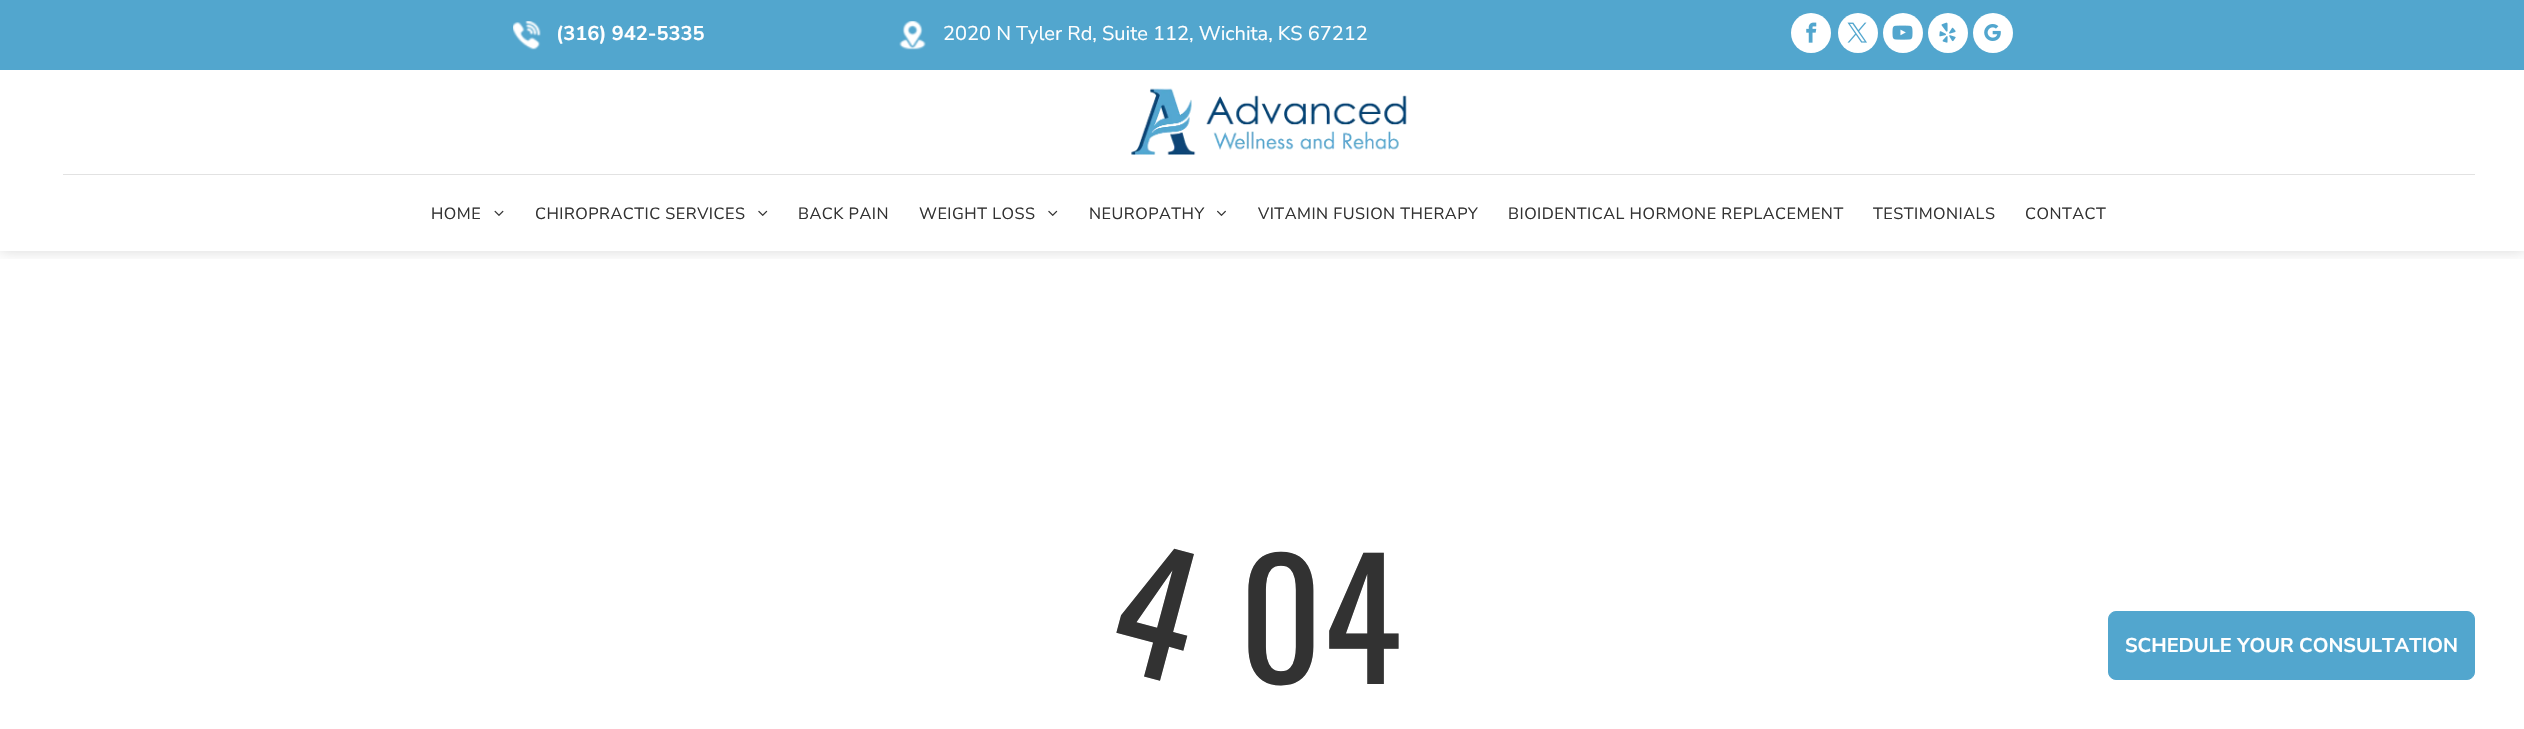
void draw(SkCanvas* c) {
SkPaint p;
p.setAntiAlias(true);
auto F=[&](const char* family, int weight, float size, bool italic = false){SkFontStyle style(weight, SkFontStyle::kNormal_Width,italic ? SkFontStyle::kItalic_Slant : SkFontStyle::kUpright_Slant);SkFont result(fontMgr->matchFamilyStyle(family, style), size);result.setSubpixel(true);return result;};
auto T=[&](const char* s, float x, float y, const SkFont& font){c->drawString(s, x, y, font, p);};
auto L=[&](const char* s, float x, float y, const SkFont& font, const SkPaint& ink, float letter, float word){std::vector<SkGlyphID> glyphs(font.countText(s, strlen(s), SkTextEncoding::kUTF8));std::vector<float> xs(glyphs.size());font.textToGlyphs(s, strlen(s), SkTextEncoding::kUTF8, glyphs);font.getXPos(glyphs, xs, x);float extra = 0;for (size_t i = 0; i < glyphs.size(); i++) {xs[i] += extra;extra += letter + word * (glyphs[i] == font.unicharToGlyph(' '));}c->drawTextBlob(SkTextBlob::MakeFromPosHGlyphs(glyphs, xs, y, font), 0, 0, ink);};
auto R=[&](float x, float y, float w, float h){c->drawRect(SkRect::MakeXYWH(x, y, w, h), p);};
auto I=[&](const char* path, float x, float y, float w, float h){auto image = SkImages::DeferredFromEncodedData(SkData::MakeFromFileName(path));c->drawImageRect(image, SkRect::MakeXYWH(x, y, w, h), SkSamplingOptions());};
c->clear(0xffffffff);
c->save();
c->clipRect(SkRect::MakeXYWH(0,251,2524,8));
p.setColor(0x26000000);
p.setMaskFilter(SkMaskFilter::MakeBlur(kNormal_SkBlurStyle, 7));
c->drawRect(SkRect::MakeXYWH(0,0,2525,251),p);
p.setMaskFilter(nullptr);
c->restore();
p.setColor(0xff52a6ce);
R(0,0,2524,70);
I("1.png",513,21,28,29);
auto f1 = F("Nunito Sans",700,20);
p.setColor(0xffffffff);
T("(316) 942-5335",556,40,f1);
I("2.png",899,21,27,29);
auto f2 = F("Nunito Sans",400,20);
T("2020 N Tyler Rd, Suite 112, Wichita, KS 67212",943,40,f2);
c->drawCircle(1811,33,20,p);
I("3.png",1806,22,11,21);
c->drawCircle(1858,33,20,p);
I("4.png",1847,22,20,21);
c->drawCircle(1903,33,20,p);
I("5.png",1892,25,21,15);
c->drawCircle(1948,33,20,p);
I("6.png",1939,22,17,21);
c->drawCircle(1993,33,20,p);
I("7.png",1984,24,17,17);
I("8.png",1131,88,276,67);
p.setColor(0xffe2e2e2);
R(63,174,2412,1);
auto f3 = F("Nunito Sans",400,16.25);
p.setColor(0xff323232);
L("HOME",431,219,f3,p,.5,0);
I("9.png",494,210,10,6);
L("CHIROPRACTIC SERVICES",535,219,f3,p,.5,0);
I("10.png",758,210,10,6);
L("BACK PAIN",798,219,f3,p,.5,0);
L("WEIGHT LOSS",919,219,f3,p,.5,0);
I("10.png",1048,210,10,6);
L("NEUROPATHY",1089,219,f3,p,.5,0);
I("11.png",1217,210,9,6);
L("VITAMIN FUSION THERAPY",1258,219,f3,p,.5,0);
L("BIOIDENTICAL HORMONE REPLACEMENT",1508,219,f3,p,.5,0);
L("TESTIMONIALS",1873,219,f3,p,.5,0);
L("CONTACT",2025,219,f3,p,.5,0);
auto f4 = F("Oswald",400,162);
c->save();
c->rotate(15,1101,665);
T("4",1101,665,f4);
c->restore();
T("04",1239,684,f4);
p.setColor(0xff52a6ce);
c->drawRoundRect(SkRect::MakeXYWH(2108.5,611.5,366,68),7.5,7.5,p);
p.setStroke(true);
p.setStrokeWidth(1);
c->drawRoundRect(SkRect::MakeXYWH(2108.5,611.5,366,68),7.5,7.5,p);
p.setStroke(false);
p.setColor(0xffffffff);
T("SCHEDULE YOUR CONSULTATION",2125,652,f1);
}
